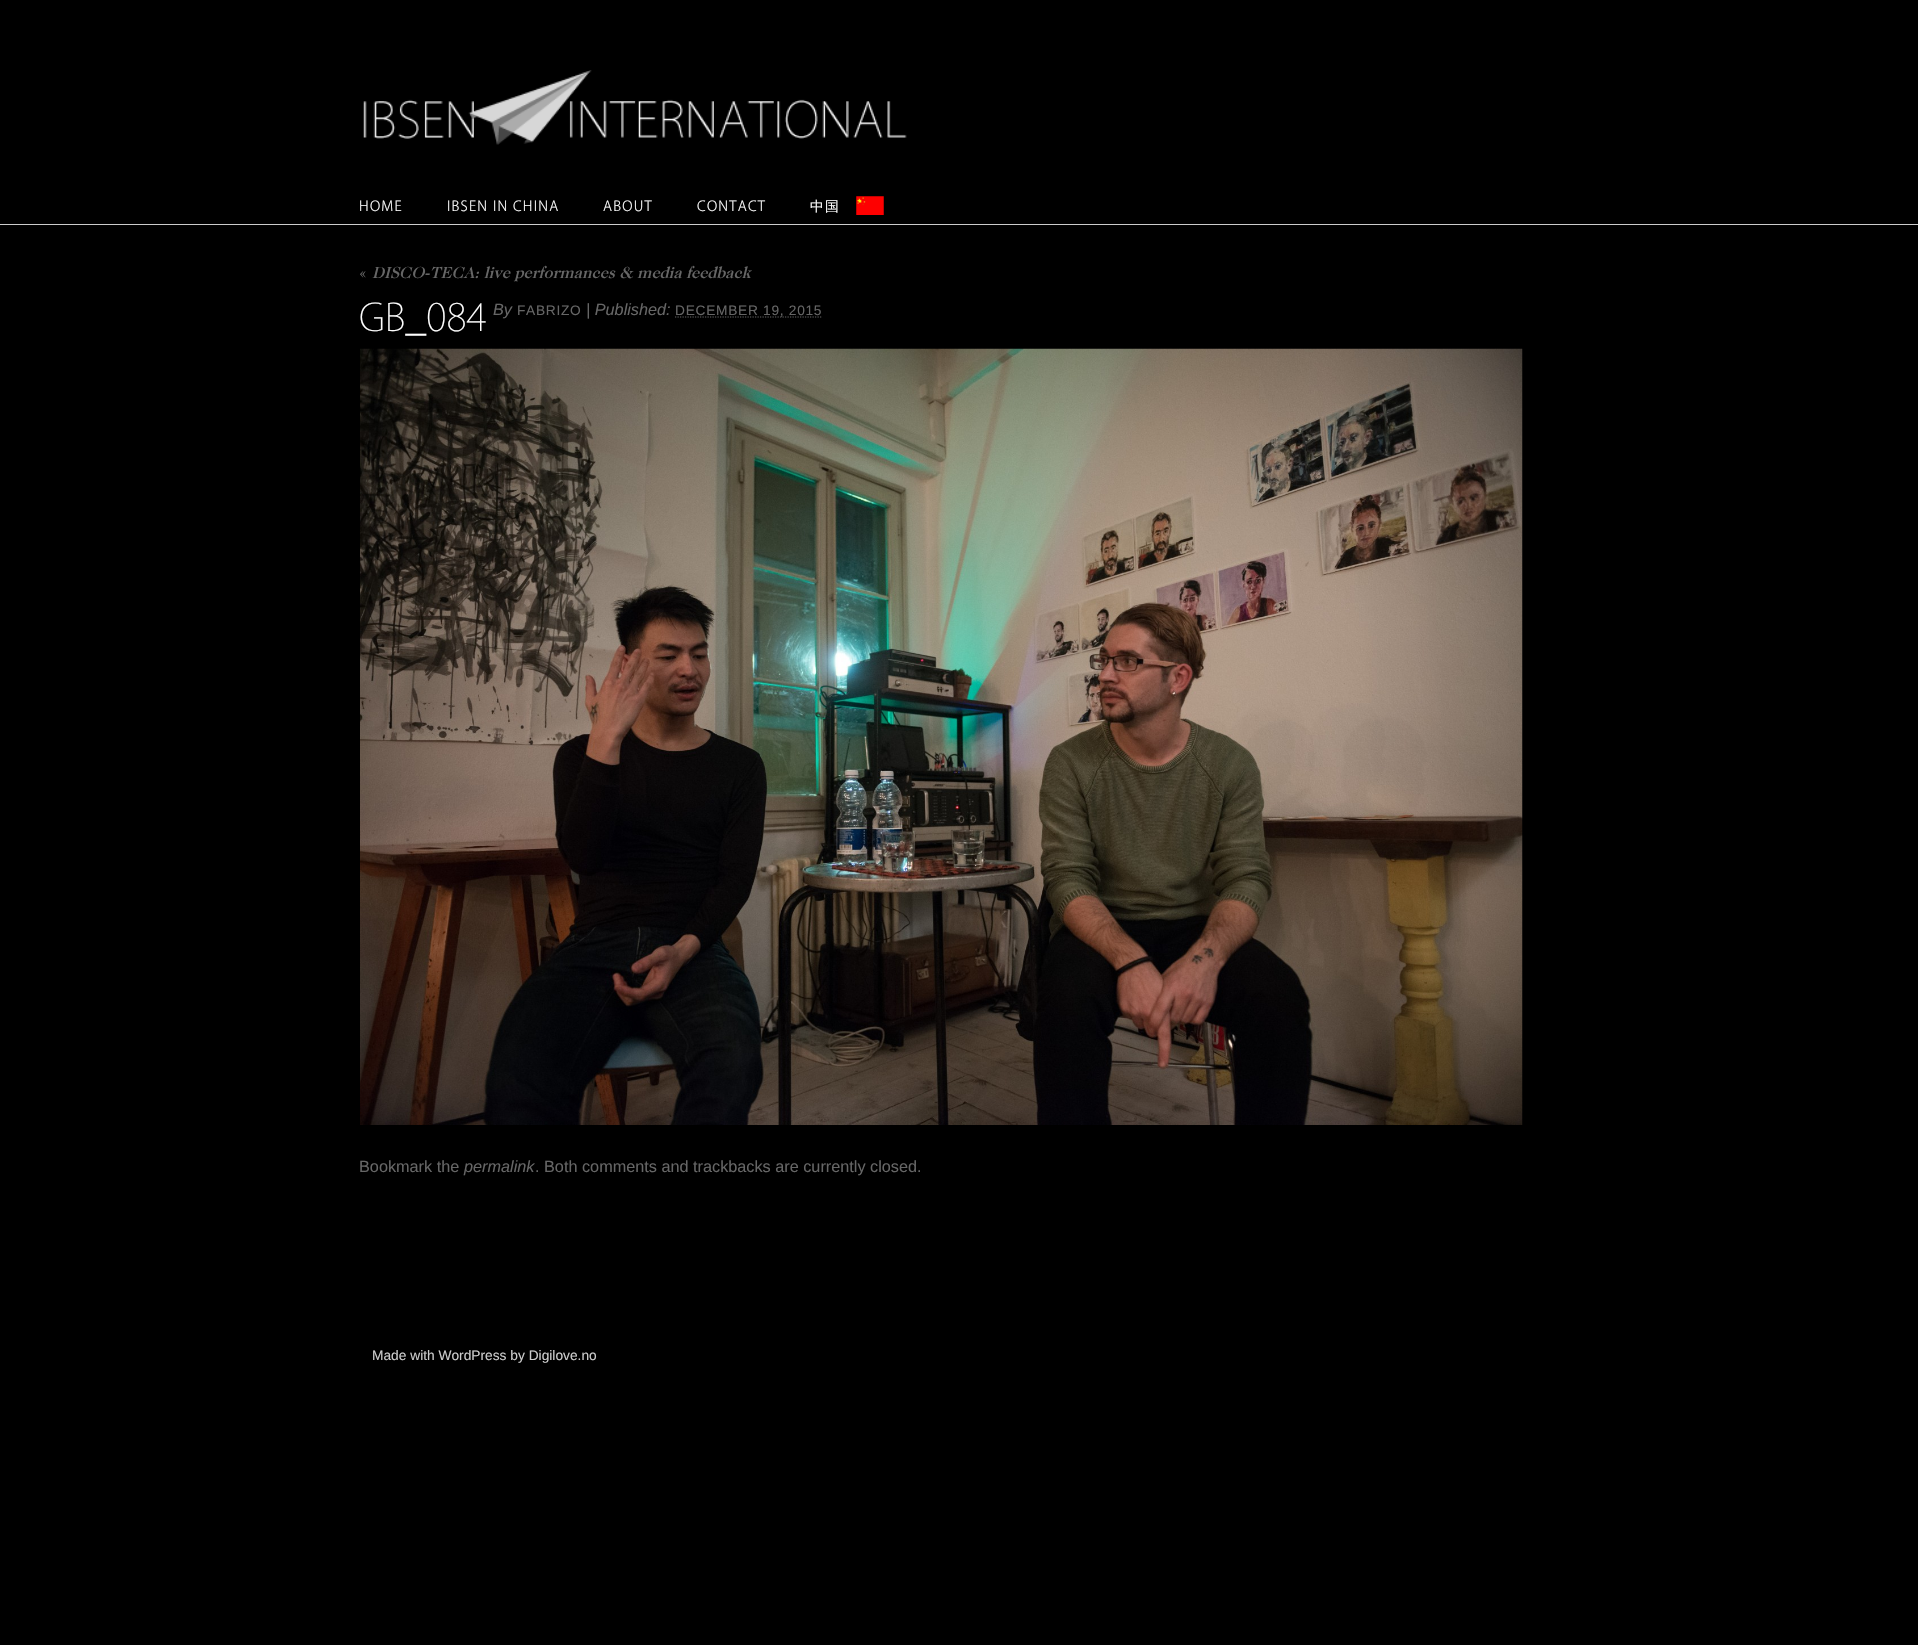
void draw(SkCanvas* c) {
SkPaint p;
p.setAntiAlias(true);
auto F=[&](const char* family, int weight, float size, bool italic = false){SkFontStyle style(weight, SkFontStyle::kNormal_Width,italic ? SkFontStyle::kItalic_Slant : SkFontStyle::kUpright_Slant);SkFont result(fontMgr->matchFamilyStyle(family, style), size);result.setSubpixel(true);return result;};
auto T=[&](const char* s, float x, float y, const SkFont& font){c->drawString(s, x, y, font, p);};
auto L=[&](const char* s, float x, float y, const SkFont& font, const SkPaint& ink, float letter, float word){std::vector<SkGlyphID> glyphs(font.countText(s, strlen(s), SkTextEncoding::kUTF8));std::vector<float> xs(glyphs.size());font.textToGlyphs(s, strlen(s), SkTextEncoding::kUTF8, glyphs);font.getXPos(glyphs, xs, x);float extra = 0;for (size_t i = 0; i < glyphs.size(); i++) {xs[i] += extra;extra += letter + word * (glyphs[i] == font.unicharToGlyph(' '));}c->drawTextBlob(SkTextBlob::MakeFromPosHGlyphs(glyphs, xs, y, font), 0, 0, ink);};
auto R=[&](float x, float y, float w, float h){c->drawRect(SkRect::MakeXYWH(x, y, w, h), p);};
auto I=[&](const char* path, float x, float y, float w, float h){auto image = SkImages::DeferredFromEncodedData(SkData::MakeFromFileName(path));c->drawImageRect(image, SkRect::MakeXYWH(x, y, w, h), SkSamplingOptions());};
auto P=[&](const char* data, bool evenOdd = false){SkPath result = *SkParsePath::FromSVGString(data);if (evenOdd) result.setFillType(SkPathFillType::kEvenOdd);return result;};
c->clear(0xff000000);
I("1.png",363,70,544,75);
p.setColor(0xffcccccc);
R(0,224,1918,1);
auto f1 = F("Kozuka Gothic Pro",300,13.75);
p.setColor(0xffffffff);
L("HOME",359,211,f1,p,1.25,0);
L("IBSEN IN CHINA",447,211,f1,p,1.25,0);
L("ABOUT",603,211,f1,p,1.25,0);
L("CONTACT",697,211,f1,p,1.25,0);
I("2.png",856,196,28,19);
auto f2 = F("WenQuanYi Zen Hei",500,13.75);
L("中国",810,211,f2,p,1.25,0);
auto f3 = F("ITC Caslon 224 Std",500,16.25);
p.setColor(0xff666666);
T("«",359,278,f3);
auto f4 = F("ITC Caslon 224 Std",500,16.25,true);
T("DISCO-TECA: live performances & media feedback",372,278,f4);
auto f5 = F("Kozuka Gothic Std",200,37.5);
p.setColor(0xffffffff);
T("GB_084",359,331,f5);
auto f6 = F("Liberation Sans",400,16.25,true);
p.setColor(0xff666666);
T("By",493,315,f6);
auto f7 = F("Liberation Sans",400,13.75);
L("FABRIZO",517,315,f7,p,.7,0);
T("| Published:",586,315,f6);
p.setStroke(true);
p.setStrokeWidth(1.2);
p.setPathEffect(SkDashPathEffect::Make({{1.25f,1.25f}}, 0));
c->drawPath(P("M675 317h146.5"),p);
p.setPathEffect(nullptr);
p.setStroke(false);
L("DECEMBER 19, 2015",675,315,f7,p,.7,0);
I("3.png",360,348,1163,777);
auto f8 = F("Liberation Sans",400,16.25);
T("Bookmark the",359,1172,f8);
T("permalink",464,1172,f6);
T(". Both comments and trackbacks are currently closed.",535,1172,f8);
p.setColor(0xffcccccc);
T("Made with WordPress by Digilove.no",372,1360,f7);
}
